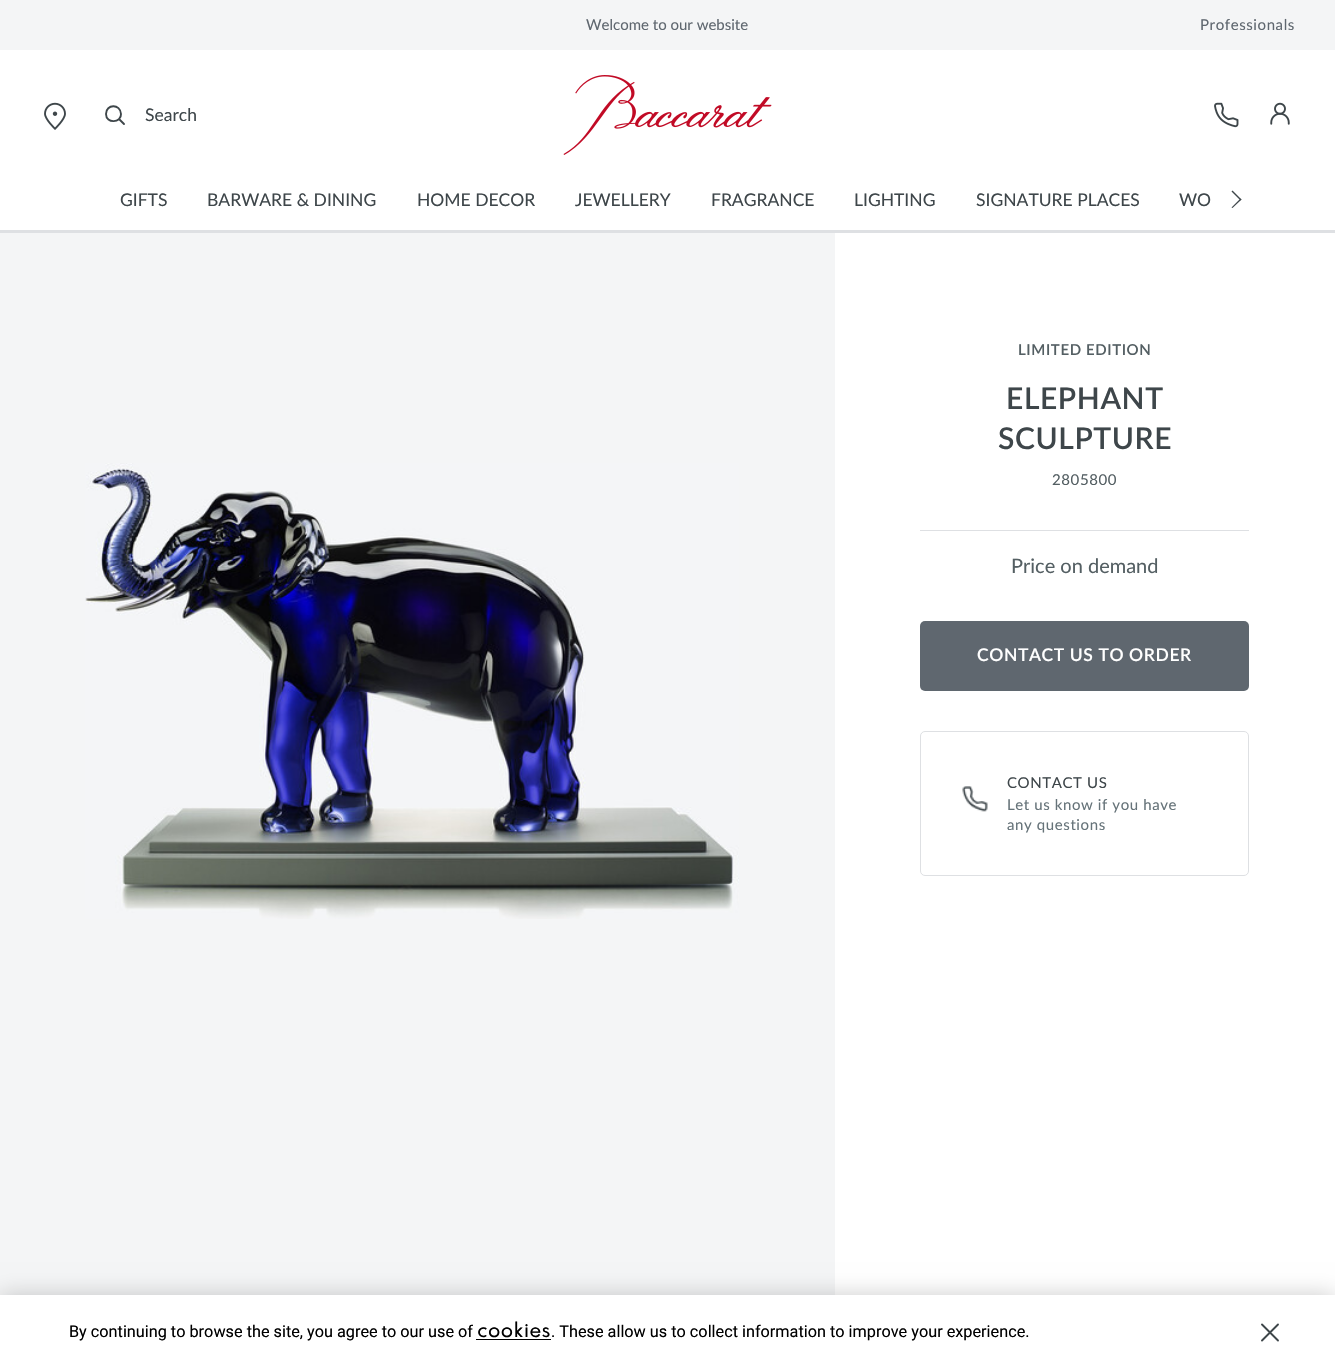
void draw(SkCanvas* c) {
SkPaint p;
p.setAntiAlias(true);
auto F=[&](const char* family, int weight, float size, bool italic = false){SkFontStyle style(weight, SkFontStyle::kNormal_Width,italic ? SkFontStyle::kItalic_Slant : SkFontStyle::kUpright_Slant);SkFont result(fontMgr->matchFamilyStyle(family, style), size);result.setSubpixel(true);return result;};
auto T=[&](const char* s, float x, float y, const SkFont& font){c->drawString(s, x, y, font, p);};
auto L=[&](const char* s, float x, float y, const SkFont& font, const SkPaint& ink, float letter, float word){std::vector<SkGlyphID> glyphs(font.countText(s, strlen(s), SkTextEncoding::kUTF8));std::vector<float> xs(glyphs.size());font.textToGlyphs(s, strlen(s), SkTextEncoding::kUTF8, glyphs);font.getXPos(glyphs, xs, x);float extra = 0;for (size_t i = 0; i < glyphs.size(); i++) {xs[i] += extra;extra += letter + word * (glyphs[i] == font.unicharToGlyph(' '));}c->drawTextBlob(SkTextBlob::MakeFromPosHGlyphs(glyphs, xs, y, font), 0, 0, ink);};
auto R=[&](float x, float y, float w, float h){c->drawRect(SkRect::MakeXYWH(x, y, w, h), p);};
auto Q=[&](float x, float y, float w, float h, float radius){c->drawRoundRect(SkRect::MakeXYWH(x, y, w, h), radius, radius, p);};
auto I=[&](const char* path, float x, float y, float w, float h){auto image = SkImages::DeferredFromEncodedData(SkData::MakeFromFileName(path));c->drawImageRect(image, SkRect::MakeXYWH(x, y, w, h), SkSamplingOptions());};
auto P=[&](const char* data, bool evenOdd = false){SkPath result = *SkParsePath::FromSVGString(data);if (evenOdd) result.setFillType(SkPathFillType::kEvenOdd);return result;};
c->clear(0xffffffff);
p.setColor(0xfff4f5f6);
R(0,0,1335,50);
auto f1 = F("Lato",400,15);
p.setColor(0xff5f676f);
T("Welcome to our website",586,30,f1);
L("Professionals",1200,30,f1,p,.6,0);
p.setColor(0xffdee0e3);
R(0,230,1335,3);
I("1.png",44,102,22,28);
p.setStroke(true);
p.setStrokeWidth(1.9);
p.setStrokeCap(SkPaint::kRound_Cap);
p.setStrokeJoin(SkPaint::kRound_Join);
p.setColor(0xff3e464a);
c->drawPath(P("M119.5 119.5l4.5 4.5m-18-10c0 10 15.5 9 15 0c-.5-10.5-15-10-15 0z"),p);
auto f2 = F("Lato",400,17.5);
p.setStroke(false);
T("Search",145,121,f2);
I("2.png",563,75,209,80);
I("3.png",1214,102,25,26);
I("4.png",1270,102,20,23);
T("GIFTS",120,206,f2);
T("BARWARE & DINING",207,206,f2);
T("HOME DECOR",417,206,f2);
T("JEWELLERY",575,206,f2);
T("FRAGRANCE",711,206,f2);
T("LIGHTING",854,206,f2);
T("SIGNATURE PLACES",976,206,f2);
T("WO",1179,206,f2);
c->drawPath(P("M1231.5 191.5l1-1l9 9l-1 1z"),p);
c->drawPath(P("M1231.5 207.5l9-9l1 1l-9 8.5z"),p);
p.setColor(0xfff4f5f6);
R(0,233,835,1062);
I("5.png",85,463,654,456);
auto f3 = F("Lato",600,15);
p.setColor(0xff545f63);
L("LIMITED EDITION",1018,355,f3,p,.6,0);
auto f4 = F("Lato",600,30);
p.setColor(0xff3e464a);
L("ELEPHANT",1006,409,f4,p,.6,0);
L("SCULPTURE",998,449,f4,p,.6,0);
p.setColor(0xff545f63);
L("2805800",1052,485,f1,p,.6,0);
p.setColor(0xffdee0e3);
R(920,530,329,1);
auto f5 = F("Lato",400,20);
p.setColor(0xff545f63);
T("Price on demand",1011,573,f5);
p.setColor(0xff5f676f);
Q(920,621,329,70,5);
auto f6 = F("Lato",600,17.5);
p.setColor(0xffffffff);
L("CONTACT US TO ORDER",977,661,f6,p,.6,0);
p.setStroke(true);
p.setStrokeWidth(1);
p.setStrokeCap(SkPaint::kButt_Cap);
p.setStrokeJoin(SkPaint::kMiter_Join);
p.setColor(0xffdee0e3);
c->drawRoundRect(SkRect::MakeXYWH(920.5,731.5,328,144),4.5,4.5,p);
I("6.png",962,786,26,26);
p.setStroke(false);
p.setColor(0xff3e464a);
L("CONTACT US",1007,788,f1,p,.6,0);
p.setColor(0xff667379);
L("Let us know if you have",1007,810,f1,p,.6,0);
L("any questions",1007,830,f1,p,.6,0);
p.setColor(0x33000000);
p.setMaskFilter(SkMaskFilter::MakeBlur(kNormal_SkBlurStyle, 11));
c->drawRect(SkRect::MakeXYWH(0,1295,1335,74),p);
p.setMaskFilter(nullptr);
p.setColor(0xffffffff);
R(0,1295,1335,73);
auto f7 = F("Roboto",400,16.25);
p.setColor(0xff000000);
T("By continuing to browse the site, you agree to our use of",69,1337,f7);
auto f8 = F("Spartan",700,17.5);
L("cookies",477,1337,f8,p,.6,0);
R(476,1339,75,1);
T(". These allow us to collect information to improve your experience.",551,1337,f7);
p.setStroke(true);
p.setStrokeWidth(1.9);
p.setStrokeCap(SkPaint::kRound_Cap);
p.setStrokeJoin(SkPaint::kRound_Join);
p.setColor(0xff3e464a);
c->drawPath(P("M1262 1340.5l16-16m-16 0l16 16"),p);
}
